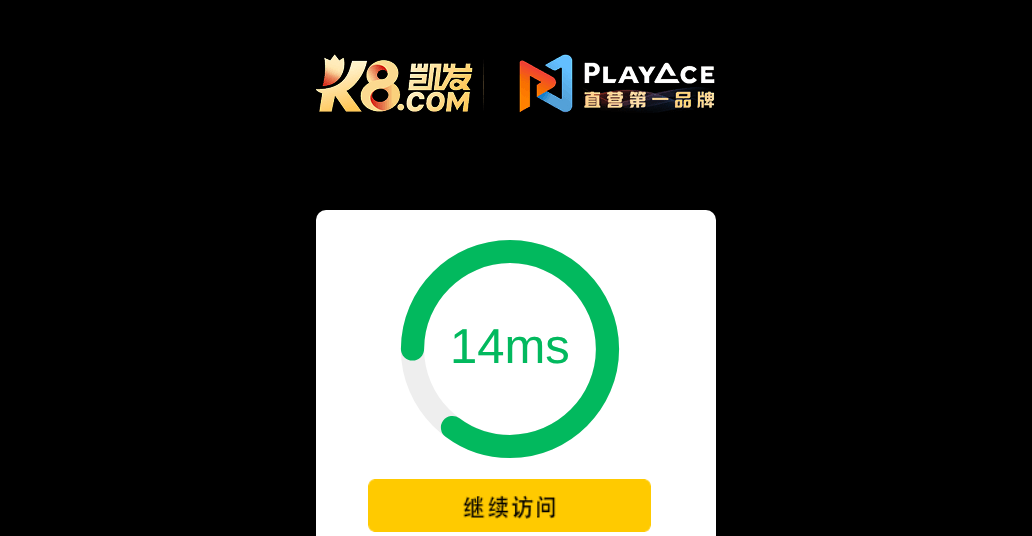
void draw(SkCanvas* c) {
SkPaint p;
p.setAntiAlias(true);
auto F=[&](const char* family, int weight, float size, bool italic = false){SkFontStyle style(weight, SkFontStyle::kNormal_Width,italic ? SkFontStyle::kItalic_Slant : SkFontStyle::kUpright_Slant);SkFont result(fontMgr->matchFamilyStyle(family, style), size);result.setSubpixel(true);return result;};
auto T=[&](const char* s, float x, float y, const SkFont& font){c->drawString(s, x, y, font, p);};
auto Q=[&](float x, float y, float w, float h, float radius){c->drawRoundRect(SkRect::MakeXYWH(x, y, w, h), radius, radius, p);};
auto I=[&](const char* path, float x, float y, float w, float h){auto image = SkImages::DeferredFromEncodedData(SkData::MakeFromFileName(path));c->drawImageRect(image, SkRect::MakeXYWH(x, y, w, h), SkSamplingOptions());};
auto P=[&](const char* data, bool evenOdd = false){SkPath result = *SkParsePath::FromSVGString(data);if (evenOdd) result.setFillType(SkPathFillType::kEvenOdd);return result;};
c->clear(0xff000000);
I("1.png",316,54,399,59);
p.setColor(0xffffffff);
Q(316,210,400,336,10);
p.setStroke(true);
p.setStrokeWidth(23.2);
p.setColor(0xffeeeeee);
c->drawPath(P("M510 251.5c53.5 0 97.5 44 97.5 97.5c0 53.5-44 97.5-97.5 97.5c-53.5 0-97.5-44-97.5-97.5c0-53.5 44-97.5 97.5-97.5"),p);
p.setStrokeCap(SkPaint::kRound_Cap);
p.setColor(0xff02b95e);
c->drawPath(P("M412.5 349c0-53.5 44-97.5 97.5-97.5c53.5 0 97.5 44 97.5 97.5c0 53.5-44 97.5-97.5 97.5c-21.5 0-41.5-7-57.5-19"),p);
auto f1 = F("Liberation Sans",400,49);
p.setStroke(false);
T("14ms",450,363,f1);
I("2.png",368,479,283,53);
}
